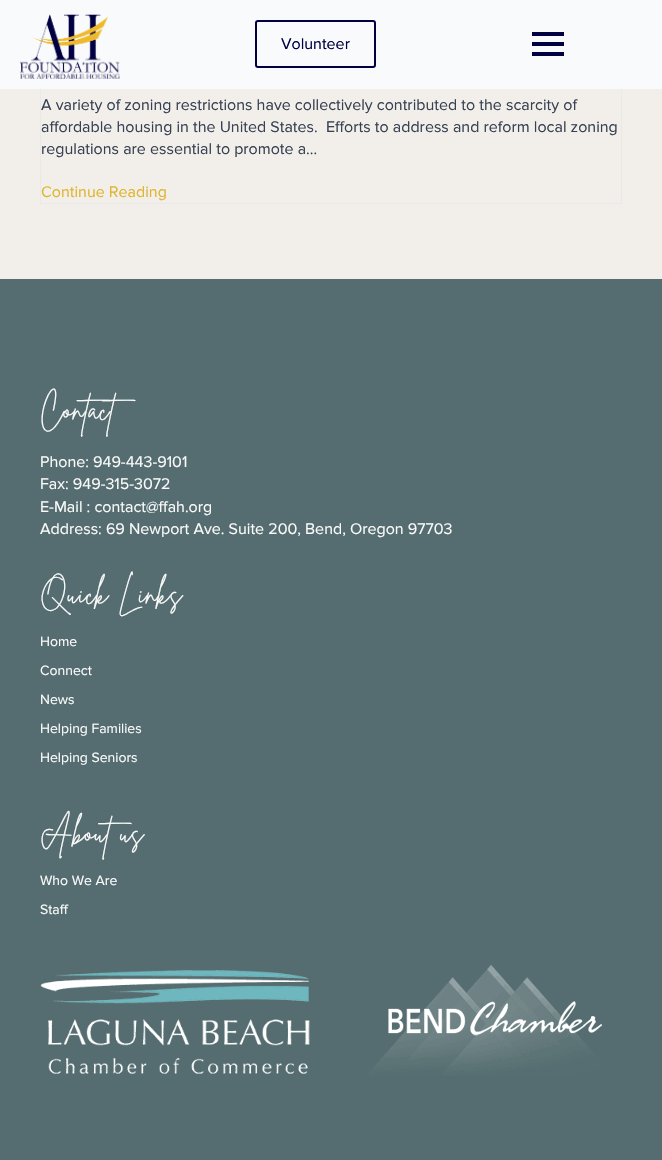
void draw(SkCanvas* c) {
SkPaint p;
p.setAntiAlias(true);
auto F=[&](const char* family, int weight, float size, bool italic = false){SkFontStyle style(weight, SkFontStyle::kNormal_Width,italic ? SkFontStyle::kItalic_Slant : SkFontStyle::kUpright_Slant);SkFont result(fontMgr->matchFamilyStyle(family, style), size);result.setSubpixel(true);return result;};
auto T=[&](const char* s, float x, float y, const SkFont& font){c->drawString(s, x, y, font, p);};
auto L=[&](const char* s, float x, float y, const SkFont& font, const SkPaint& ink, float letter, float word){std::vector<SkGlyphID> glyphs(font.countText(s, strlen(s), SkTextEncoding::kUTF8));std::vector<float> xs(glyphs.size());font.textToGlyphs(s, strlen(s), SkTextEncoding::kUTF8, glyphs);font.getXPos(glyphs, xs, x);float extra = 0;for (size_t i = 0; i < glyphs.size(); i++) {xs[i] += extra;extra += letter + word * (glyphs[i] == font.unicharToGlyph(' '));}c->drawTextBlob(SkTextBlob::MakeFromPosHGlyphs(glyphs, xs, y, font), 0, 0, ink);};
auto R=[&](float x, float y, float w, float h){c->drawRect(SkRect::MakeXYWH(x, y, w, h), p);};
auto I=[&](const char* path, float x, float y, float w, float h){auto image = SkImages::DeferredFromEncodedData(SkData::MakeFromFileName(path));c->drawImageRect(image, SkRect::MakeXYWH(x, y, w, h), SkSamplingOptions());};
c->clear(0xfff2efeb);
p.setStroke(true);
p.setStrokeWidth(1);
p.setColor(0xffe9e9e9);
c->drawRect(SkRect::MakeXYWH(40.5,-.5,581,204),p);
p.setStroke(false);
p.setColor(0xfff9fafb);
R(0,0,662,89);
I("1.png",20,14,100,65);
p.setStroke(true);
p.setStrokeWidth(2);
p.setColor(0xff000042);
c->drawRoundRect(SkRect::MakeXYWH(256,21,119,46),2,2,p);
auto f1 = F("Proxima Nova",400,16);
p.setStroke(false);
T("Volunteer",281,49,f1);
R(532,42,32,4);
R(532,32,32,4);
R(532,52,32,4);
p.setColor(0xff374151);
T("A variety of zoning restrictions have collectively contributed to the scarcity of",41,110,f1);
T("affordable housing in the United States.  Efforts to address and reform local zoning",41,132,f1);
T("regulations are essential to promote a...",41,154,f1);
p.setColor(0xffdeb52f);
T("Continue Reading",41,197,f1);
p.setColor(0xff556d70);
R(0,279,662,881);
auto f2 = F("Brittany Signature",400,30);
p.setColor(0xfffbfbfb);
L("Contact",40,418,f2,p,.4,0);
T("Phone: 949-443-9101",40,467,f1);
T("Fax: 949-315-3072",40,489,f1);
T("E-Mail : contact@ffah.org",40,512,f1);
T("Address: 69 Newport Ave. Suite 200, Bend, Oregon 97703",40,534,f1);
L("Quick Links",40,602,f2,p,.4,0);
auto f3 = F("Proxima Nova",400,14);
T("Home",40,646,f3);
T("Connect",40,675,f3);
T("News",40,704,f3);
T("Helping Families",40,733,f3);
T("Helping Seniors",40,762,f3);
L("About us",40,841,f2,p,.4,0);
T("Who We Are",40,885,f3);
T("Staff",40,914,f3);
I("2.png",40,970,270,104);
I("3.png",369,964,233,112);
}
